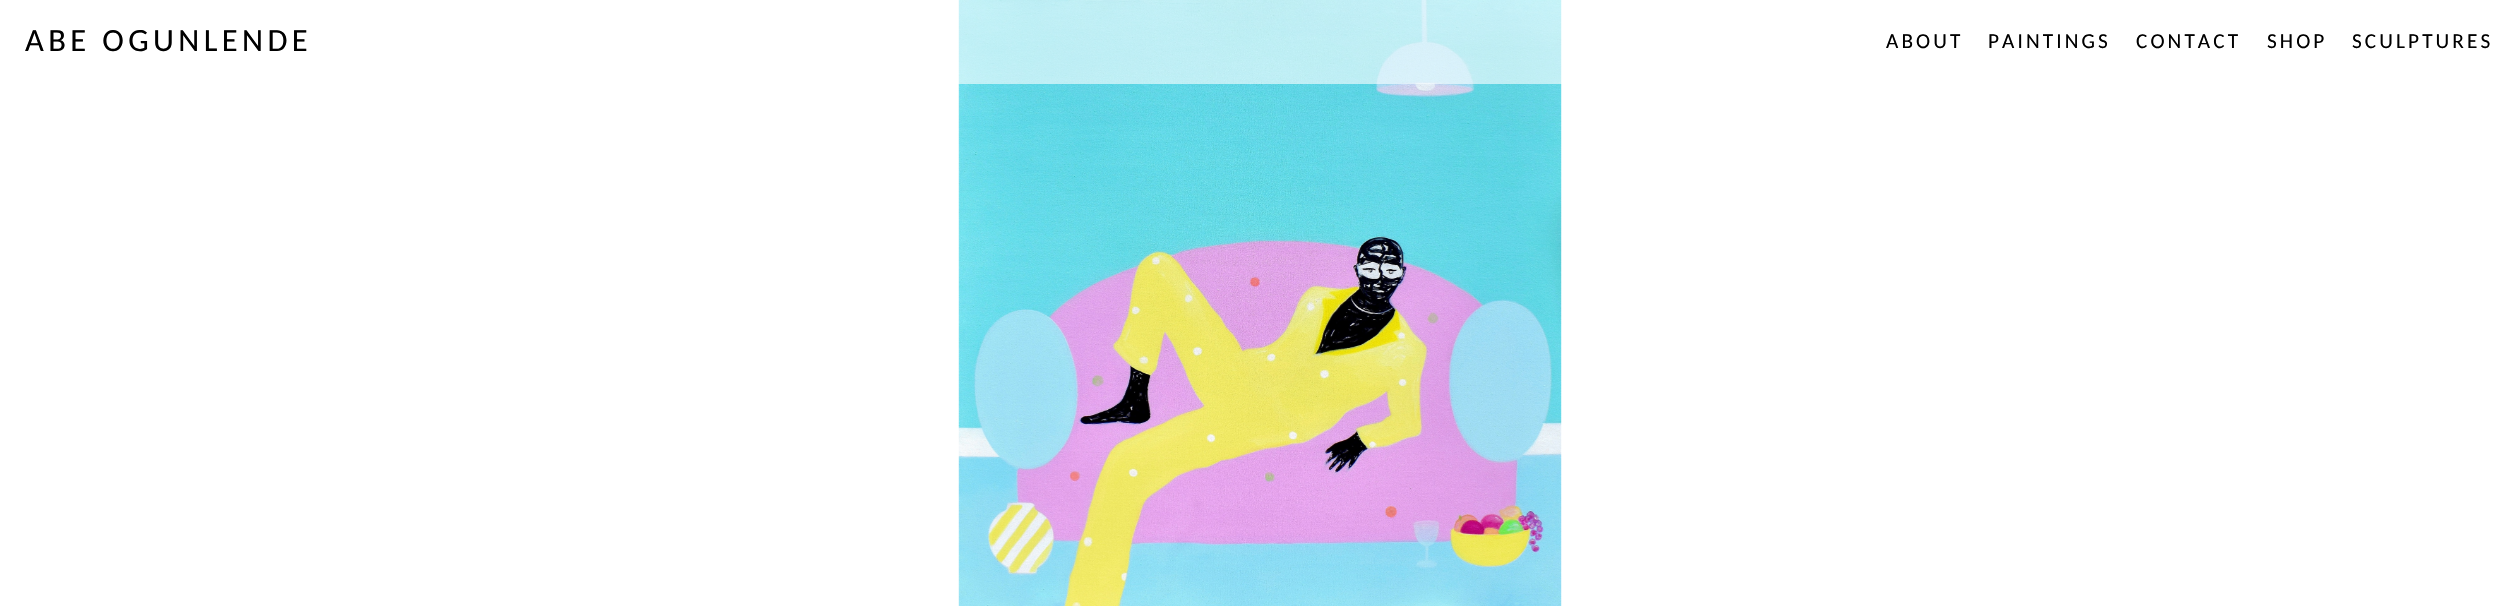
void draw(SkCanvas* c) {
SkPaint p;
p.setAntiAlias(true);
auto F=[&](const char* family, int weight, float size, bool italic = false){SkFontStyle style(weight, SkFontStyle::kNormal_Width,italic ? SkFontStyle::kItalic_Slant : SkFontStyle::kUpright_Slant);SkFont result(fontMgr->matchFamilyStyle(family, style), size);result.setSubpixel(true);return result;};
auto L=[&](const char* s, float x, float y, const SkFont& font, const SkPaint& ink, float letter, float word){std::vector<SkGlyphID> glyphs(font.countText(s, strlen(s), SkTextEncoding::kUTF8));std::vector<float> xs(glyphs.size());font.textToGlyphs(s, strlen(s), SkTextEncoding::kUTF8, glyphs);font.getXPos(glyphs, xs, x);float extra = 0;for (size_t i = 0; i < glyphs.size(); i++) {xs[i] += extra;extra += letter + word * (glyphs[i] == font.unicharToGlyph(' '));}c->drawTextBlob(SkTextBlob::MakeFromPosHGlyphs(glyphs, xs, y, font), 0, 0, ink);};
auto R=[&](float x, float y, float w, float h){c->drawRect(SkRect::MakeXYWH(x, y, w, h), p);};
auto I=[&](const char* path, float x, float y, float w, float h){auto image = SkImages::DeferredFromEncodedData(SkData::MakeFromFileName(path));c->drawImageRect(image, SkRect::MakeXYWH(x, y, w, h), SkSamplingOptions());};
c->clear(0xffffffff);
I("1.png",958,0,604,606);
p.setColor(0x99ffffff);
R(958,0,604,84);
auto f1 = F("Carlito",400,32.5);
p.setColor(0xff000000);
L("ABE OGUNLENDE",25,51,f1,p,4.4,0);
auto f2 = F("Carlito",400,21.25);
L("ABOUT",1886,48,f2,p,3.1,0);
L("PAINTINGS",1988,48,f2,p,3.1,0);
L("CONTACT",2136,48,f2,p,3.1,0);
L("SHOP",2267,48,f2,p,3.1,0);
L("SCULPTURES",2352,48,f2,p,3.1,0);
}
